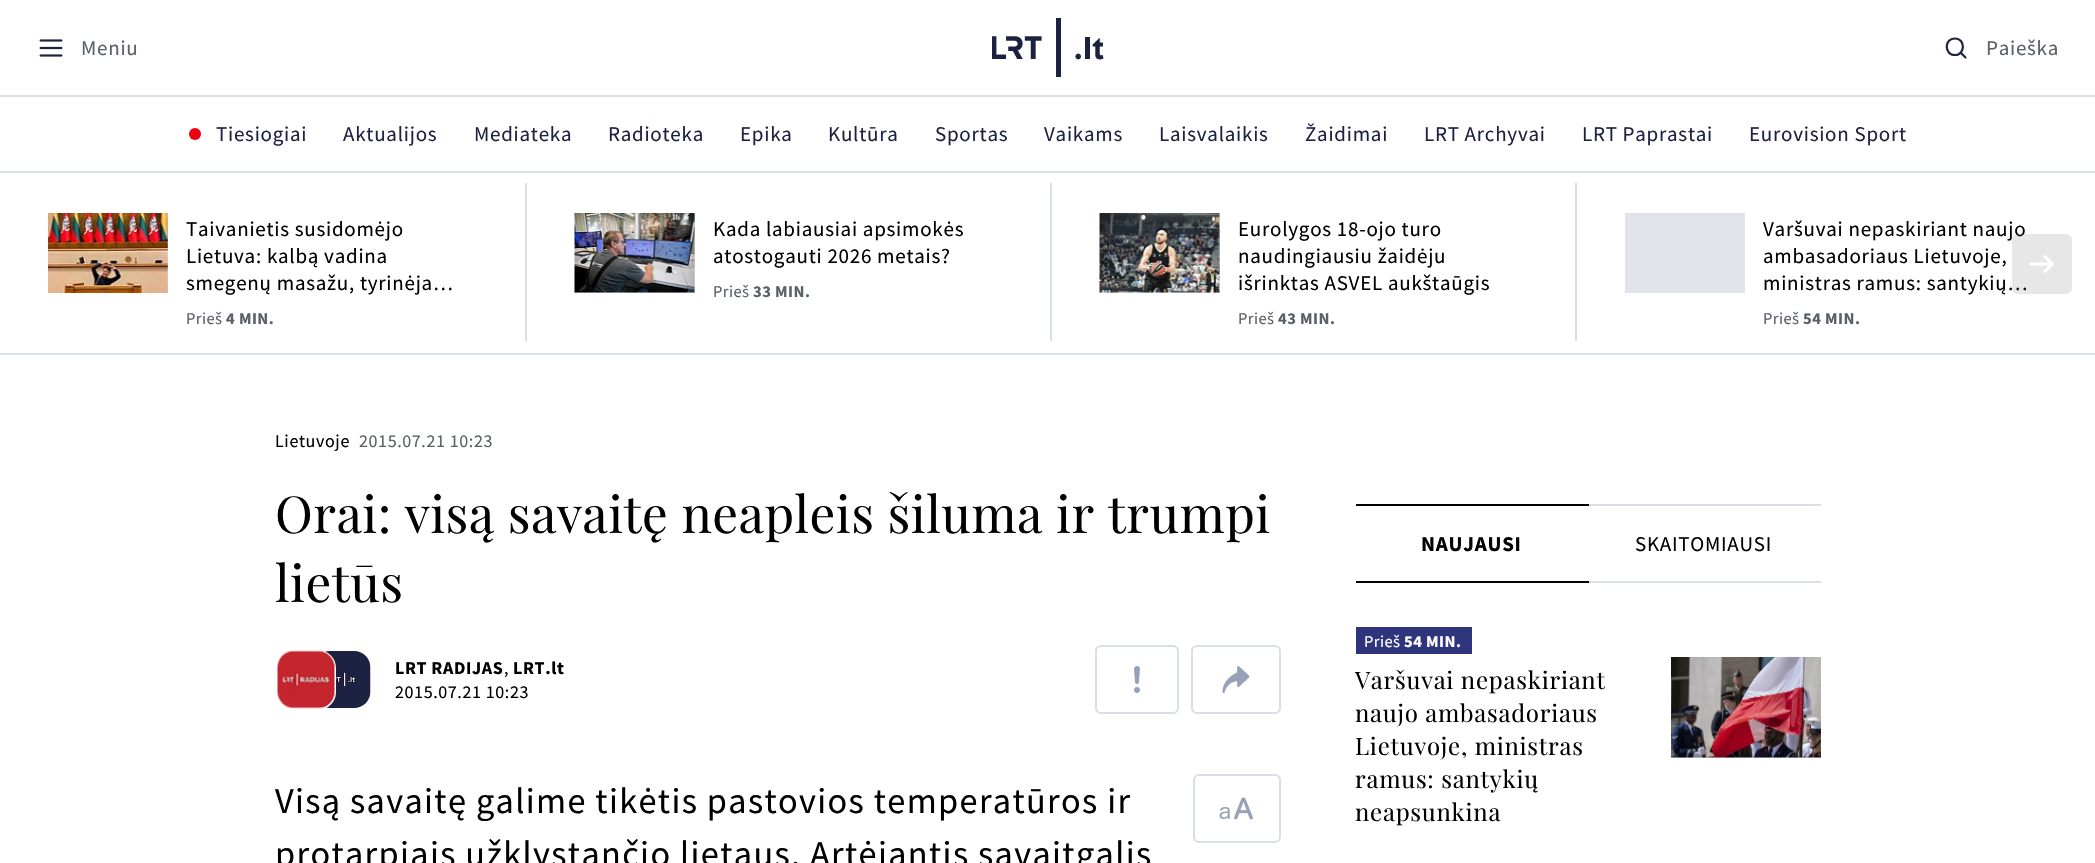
void draw(SkCanvas* c) {
SkPaint p;
p.setAntiAlias(true);
auto F=[&](const char* family, int weight, float size, bool italic = false){SkFontStyle style(weight, SkFontStyle::kNormal_Width,italic ? SkFontStyle::kItalic_Slant : SkFontStyle::kUpright_Slant);SkFont result(fontMgr->matchFamilyStyle(family, style), size);result.setSubpixel(true);return result;};
auto L=[&](const char* s, float x, float y, const SkFont& font, const SkPaint& ink, float letter, float word){std::vector<SkGlyphID> glyphs(font.countText(s, strlen(s), SkTextEncoding::kUTF8));std::vector<float> xs(glyphs.size());font.textToGlyphs(s, strlen(s), SkTextEncoding::kUTF8, glyphs);font.getXPos(glyphs, xs, x);float extra = 0;for (size_t i = 0; i < glyphs.size(); i++) {xs[i] += extra;extra += letter + word * (glyphs[i] == font.unicharToGlyph(' '));}c->drawTextBlob(SkTextBlob::MakeFromPosHGlyphs(glyphs, xs, y, font), 0, 0, ink);};
auto R=[&](float x, float y, float w, float h){c->drawRect(SkRect::MakeXYWH(x, y, w, h), p);};
auto Q=[&](float x, float y, float w, float h, float radius){c->drawRoundRect(SkRect::MakeXYWH(x, y, w, h), radius, radius, p);};
auto I=[&](const char* path, float x, float y, float w, float h){auto image = SkImages::DeferredFromEncodedData(SkData::MakeFromFileName(path));c->drawImageRect(image, SkRect::MakeXYWH(x, y, w, h), SkSamplingOptions());};
auto P=[&](const char* data, bool evenOdd = false){SkPath result = *SkParsePath::FromSVGString(data);if (evenOdd) result.setFillType(SkPathFillType::kEvenOdd);return result;};
c->clear(0xffffffff);
p.setColor(0xffdadee5);
R(0,95,2095,2);
I("1.png",39,39,24,18);
auto f1 = F("Source Sans Pro",400,21);
p.setColor(0xff5b5f66);
L("Meniu",81,55,f1,p,.75,0);
I("2.png",992,18,112,59);
p.setStroke(true);
p.setStrokeWidth(2.2);
p.setStrokeCap(SkPaint::kRound_Cap);
p.setStrokeJoin(SkPaint::kRound_Join);
p.setColor(0xff1d2142);
c->drawPath(P("M1955 55c10.5 0 10.5-16.5 0-16.5c-11 0-11 16.5 0 16.5zm5.5-2.5l5 5"),p);
p.setStroke(false);
p.setColor(0xff5b5f66);
L("Paieška",1986,55,f1,p,.75,0);
p.setColor(0xffdadee5);
R(0,171,2095,2);
p.setColor(0xffee000e);
c->drawCircle(195,134,6,p);
p.setColor(0xff1d2142);
L("Tiesiogiai",216,141,f1,p,.75,0);
L("Aktualijos",343,141,f1,p,.75,0);
L("Mediateka",474,141,f1,p,.75,0);
L("Radioteka",608,141,f1,p,.75,0);
L("Epika",740,141,f1,p,.75,0);
L("Kultūra",828,141,f1,p,.75,0);
L("Sportas",935,141,f1,p,.75,0);
L("Vaikams",1044,141,f1,p,.75,0);
L("Laisvalaikis",1159,141,f1,p,.75,0);
L("Žaidimai",1305,141,f1,p,.75,0);
L("LRT Archyvai",1424,141,f1,p,.75,0);
L("LRT Paprastai",1582,141,f1,p,.75,0);
L("Eurovision Sport",1749,141,f1,p,.75,0);
p.setColor(0xffdadee5);
R(0,353,2095,2);
I("3.png",48,213,120,80);
p.setColor(0xff000000);
L("Taivanietis susidomėjo",186,236,f1,p,.75,0);
L("Lietuva: kalbą vadina",186,263,f1,p,.75,0);
L("smegenų masažu, tyrinėja…",186,290,f1,p,.75,0);
auto f2 = F("Source Sans Pro",400,16.5);
p.setColor(0xff5b5f66);
L("Prieš",186,324,f2,p,.45,0);
auto f3 = F("Source Sans Pro",700,16.5);
L("4 MIN.",226,324,f3,p,.45,0);
p.setColor(0xffdadee5);
R(525,183,2,158);
p.setColor(0xffe0e3e9);
R(575,213,120,80);
I("4.png",574,213,121,80);
p.setColor(0xff000000);
L("Kada labiausiai apsimokės",713,236,f1,p,.75,0);
L("atostogauti 2026 metais?",713,263,f1,p,.75,0);
p.setColor(0xff5b5f66);
L("Prieš",713,297,f2,p,.45,0);
L("33 MIN.",753,297,f3,p,.45,0);
p.setColor(0xffdadee5);
R(1050,183,2,158);
p.setColor(0xffe0e3e9);
R(1100,213,120,80);
I("5.png",1099,213,121,80);
p.setColor(0xff000000);
L("Eurolygos 18-ojo turo",1238,236,f1,p,.75,0);
L("naudingiausiu žaidėju",1238,263,f1,p,.75,0);
L("išrinktas ASVEL aukštaūgis",1238,290,f1,p,.75,0);
p.setColor(0xff5b5f66);
L("Prieš",1238,324,f2,p,.45,0);
L("43 MIN.",1278,324,f3,p,.45,0);
p.setColor(0xffdadee5);
R(1575,183,2,158);
p.setColor(0xffe0e3e9);
R(1625,213,120,80);
p.setColor(0xff000000);
L("Varšuvai nepaskiriant naujo",1763,236,f1,p,.75,0);
L("ambasadoriaus Lietuvoje,",1763,263,f1,p,.75,0);
L("ministras ramus: santykių…",1763,290,f1,p,.75,0);
p.setColor(0xff5b5f66);
L("Prieš",1763,324,f2,p,.45,0);
L("54 MIN.",1803,324,f3,p,.45,0);
p.setColor(0x265b5f66);
Q(2012,234,60,60,6);
I("6.png",2029,255,25,18);
auto f4 = F("Source Sans Pro",400,18);
p.setColor(0xff000000);
L("Lietuvoje",275,447,f4,p,.6,0);
p.setColor(0xff5b5f66);
L("2015.07.21 10:23",359,447,f4,p,.6,0);
auto f5 = F("Playfair Display",400,51);
p.setColor(0xff000000);
L("Orai: visą savaitę neapleis šiluma ir trumpi",275,533,f5,p,.45,0);
L("lietūs",275,602,f5,p,.45,0);
I("8.png",322,651,49,57);
p.setStroke(true);
p.setStrokeWidth(2);
p.setStrokeCap(SkPaint::kButt_Cap);
p.setStrokeJoin(SkPaint::kMiter_Join);
p.setColor(0xffffffff);
c->drawRoundRect(SkRect::MakeXYWH(277,651,58,58),17,17,p);
I("7.png",277,650,58,59);
auto f6 = F("Source Sans Pro",700,18);
p.setStroke(false);
p.setColor(0xff000000);
L("LRT RADIJAS",395,674,f6,p,.6,0);
L(",",504,674,f4,p,.6,0);
L("LRT.lt",513,674,f6,p,.6,0);
L("2015.07.21 10:23",395,698,f4,p,.6,0);
p.setStroke(true);
p.setColor(0xffdadee5);
c->drawRoundRect(SkRect::MakeXYWH(1096,646,82,67),5,5,p);
I("9.png",1134,666,6,27);
c->drawRoundRect(SkRect::MakeXYWH(1192,646,88,67),5,5,p);
I("10.png",1222,666,28,27);
auto f7 = F("Source Sans Pro",400,36.25);
p.setStroke(false);
p.setColor(0xff000000);
L("Visą savaitę galime tikėtis pastovios temperatūros ir",275,813,f7,p,1.35,0);
p.setStroke(true);
p.setColor(0xffdadee5);
c->drawRoundRect(SkRect::MakeXYWH(1194,775,86,67),5,5,p);
I("11.png",1219,797,34,23);
p.setStroke(false);
p.setColor(0xff000000);
L("protarpiais užklystančio lietaus. Artėjantis savaitgalis",275,866,f7,p,1.35,0);
R(1356,504,233,2);
R(1356,581,233,2);
auto f8 = F("Source Sans Pro",700,21);
L("NAUJAUSI",1421,551,f8,p,.75,0);
p.setColor(0xffdadee5);
R(1589,504,232,2);
R(1589,581,232,2);
p.setColor(0xff000000);
L("SKAITOMIAUSI",1635,551,f1,p,.75,0);
p.setColor(0xff2f357d);
R(1356,627,116,27);
p.setColor(0xffffffff);
L("Prieš",1364,647,f2,p,.45,0);
L("54 MIN.",1404,647,f3,p,.45,0);
auto f9 = F("Playfair Display",400,24);
p.setColor(0xff000000);
L("Varšuvai nepaskiriant",1355,689,f9,p,.75,0);
L("naujo ambasadoriaus",1355,722,f9,p,.75,0);
L("Lietuvoje, ministras",1355,755,f9,p,.75,0);
L("ramus: santykių",1355,788,f9,p,.75,0);
L("neapsunkina",1355,821,f9,p,.75,0);
p.setColor(0xffe0e3e9);
R(1671,657,150,101);
I("12.png",1671,657,150,101);
}
